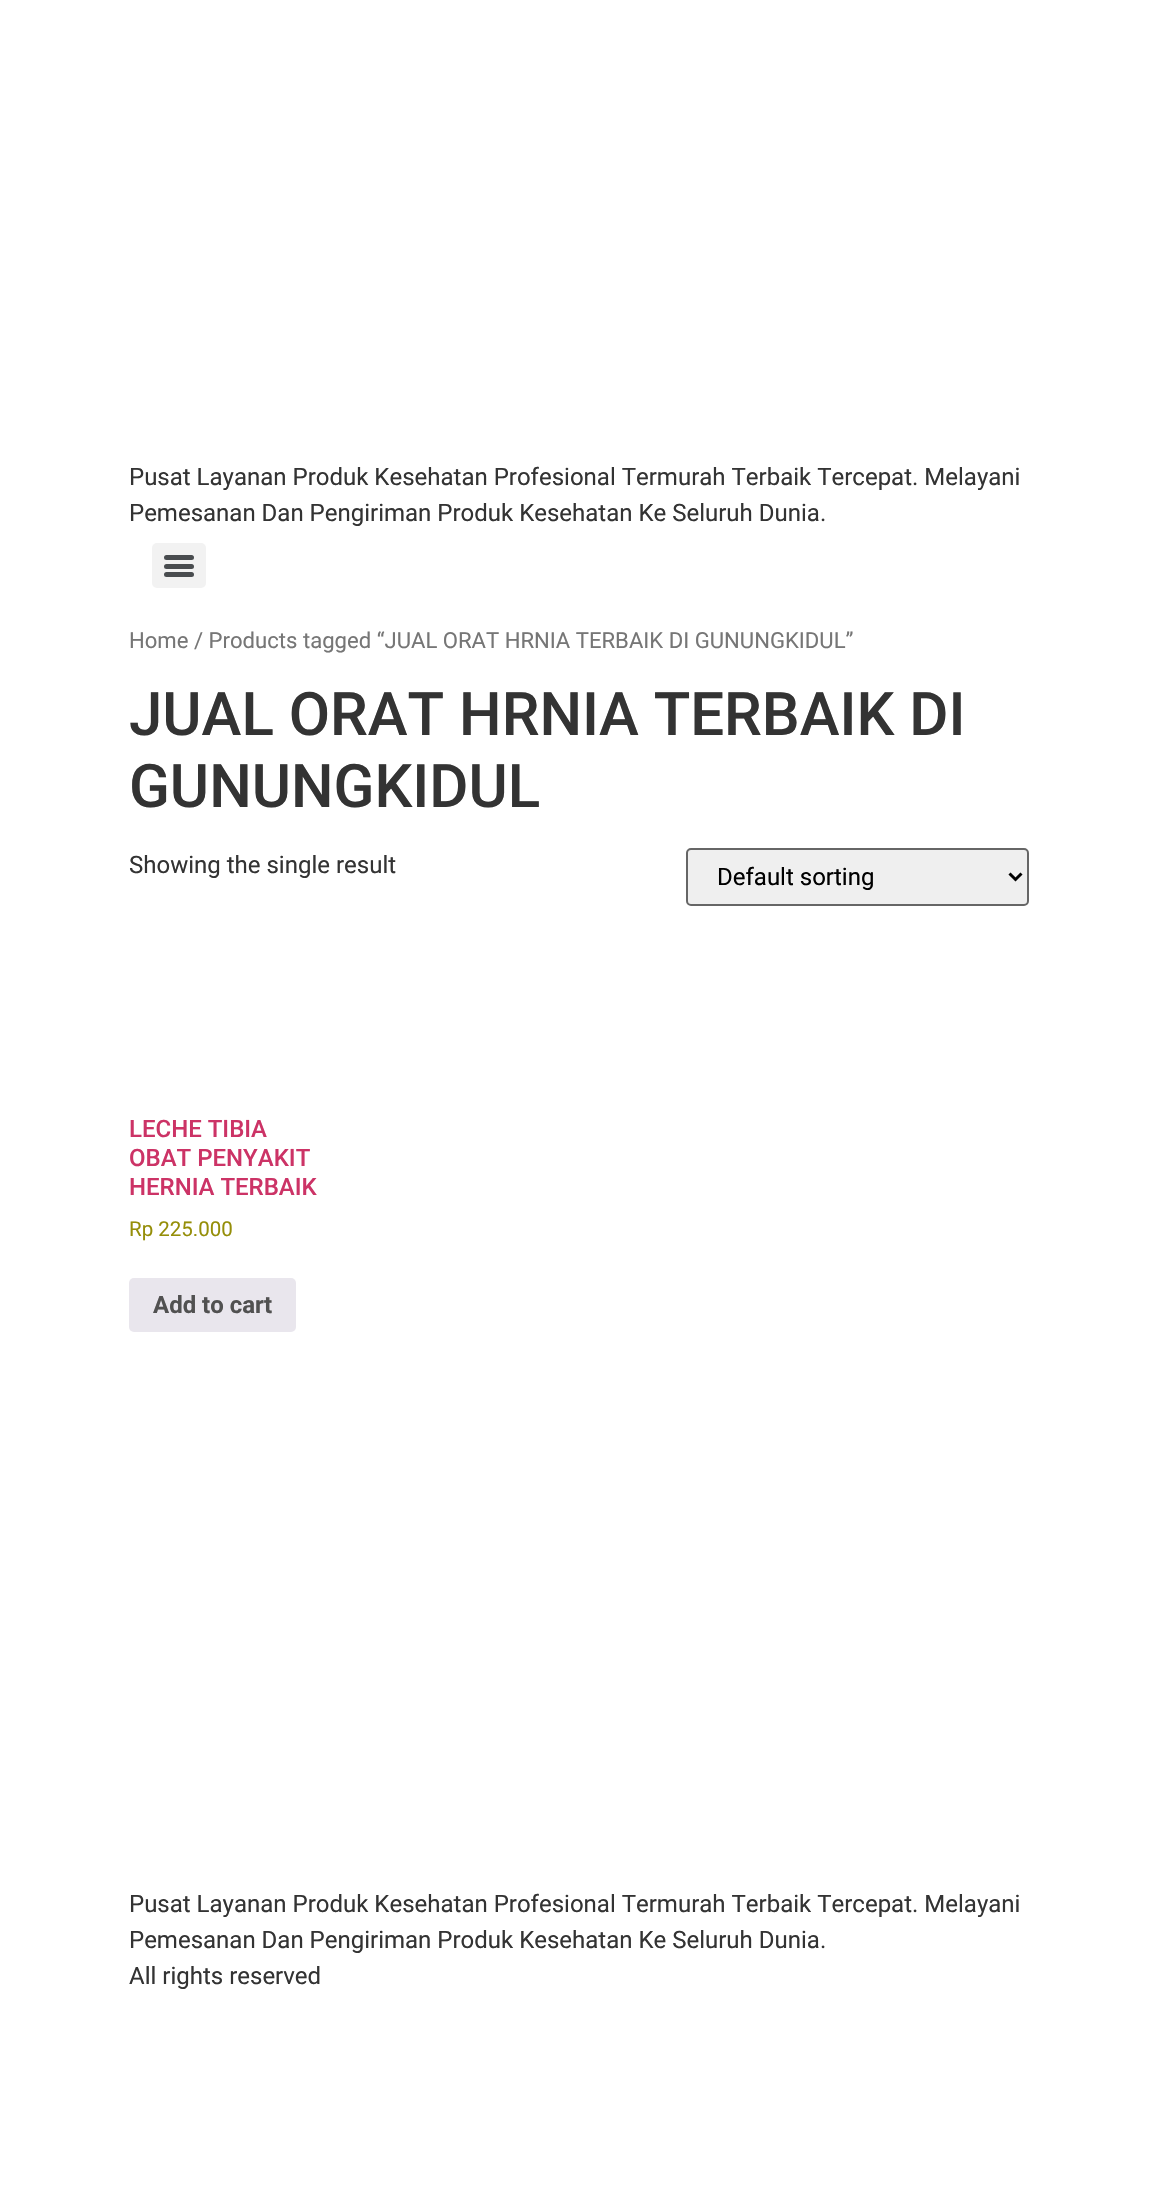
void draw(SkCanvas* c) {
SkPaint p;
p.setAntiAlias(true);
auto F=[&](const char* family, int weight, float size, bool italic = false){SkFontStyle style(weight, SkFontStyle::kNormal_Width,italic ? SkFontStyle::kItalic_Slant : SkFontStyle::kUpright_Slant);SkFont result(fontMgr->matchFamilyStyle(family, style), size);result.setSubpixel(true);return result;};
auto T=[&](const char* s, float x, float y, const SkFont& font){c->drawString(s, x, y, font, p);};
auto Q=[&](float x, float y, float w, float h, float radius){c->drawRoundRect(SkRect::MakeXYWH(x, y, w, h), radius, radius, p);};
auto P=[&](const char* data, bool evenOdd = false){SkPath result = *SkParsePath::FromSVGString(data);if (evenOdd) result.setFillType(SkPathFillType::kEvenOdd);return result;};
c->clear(0xffffffff);
auto f1 = F("Roboto",400,24);
p.setColor(0xff333333);
T("Pusat Layanan Produk Kesehatan Profesional Termurah Terbaik Tercepat. Melayani",129,485,f1);
T("Pemesanan Dan Pengiriman Produk Kesehatan Ke Seluruh Dunia.",129,521,f1);
p.setColor(0xfff2f2f2);
Q(152,543,54,45,5);
p.setColor(0xff494c4f);
Q(164,564,30,5,2.5);
Q(164,555,30,5,2.5);
Q(164,572,30,5,2.5);
auto f2 = F("Roboto",400,22.1);
p.setColor(0xff767676);
T("Home / Products tagged “JUAL ORAT HRNIA TERBAIK DI GUNUNGKIDUL”",129,648,f2);
auto f3 = F("Roboto",500,60);
p.setColor(0xff333333);
T("JUAL ORAT HRNIA TERBAIK DI",129,735,f3);
T("GUNUNGKIDUL",129,807,f3);
T("Showing the single result",129,873,f1);
p.setColor(0xffefefef);
c->drawRoundRect(SkRect::MakeXYWH(687,849,341,56),4,4,p);
p.setStroke(true);
p.setStrokeWidth(2);
p.setColor(0xff666666);
c->drawRoundRect(SkRect::MakeXYWH(687,849,341,56),4,4,p);
p.setStrokeWidth(3);
p.setColor(0xff000000);
c->drawPath(P("M1009.5 873.5l6 6l6-6"),p);
p.setStroke(false);
T("Default sorting",717,885,f1);
auto f4 = F("Roboto",500,24);
p.setColor(0xffcc3366);
T("LECHE TIBIA",129,1137,f4);
T("OBAT PENYAKIT",129,1166,f4);
T("HERNIA TERBAIK",129,1195,f4);
auto f5 = F("Roboto",400,20.5);
p.setColor(0xff958e09);
T("Rp 225.000",129,1236,f5);
p.setColor(0xffe9e6ed);
Q(129,1278,167,54,5);
auto f6 = F("Roboto",700,24);
p.setColor(0xff515151);
T("Add to cart",153,1313,f6);
p.setColor(0xff333333);
T("Pusat Layanan Produk Kesehatan Profesional Termurah Terbaik Tercepat. Melayani",129,1912,f1);
T("Pemesanan Dan Pengiriman Produk Kesehatan Ke Seluruh Dunia.",129,1948,f1);
T("All rights reserved",129,1984,f1);
}
